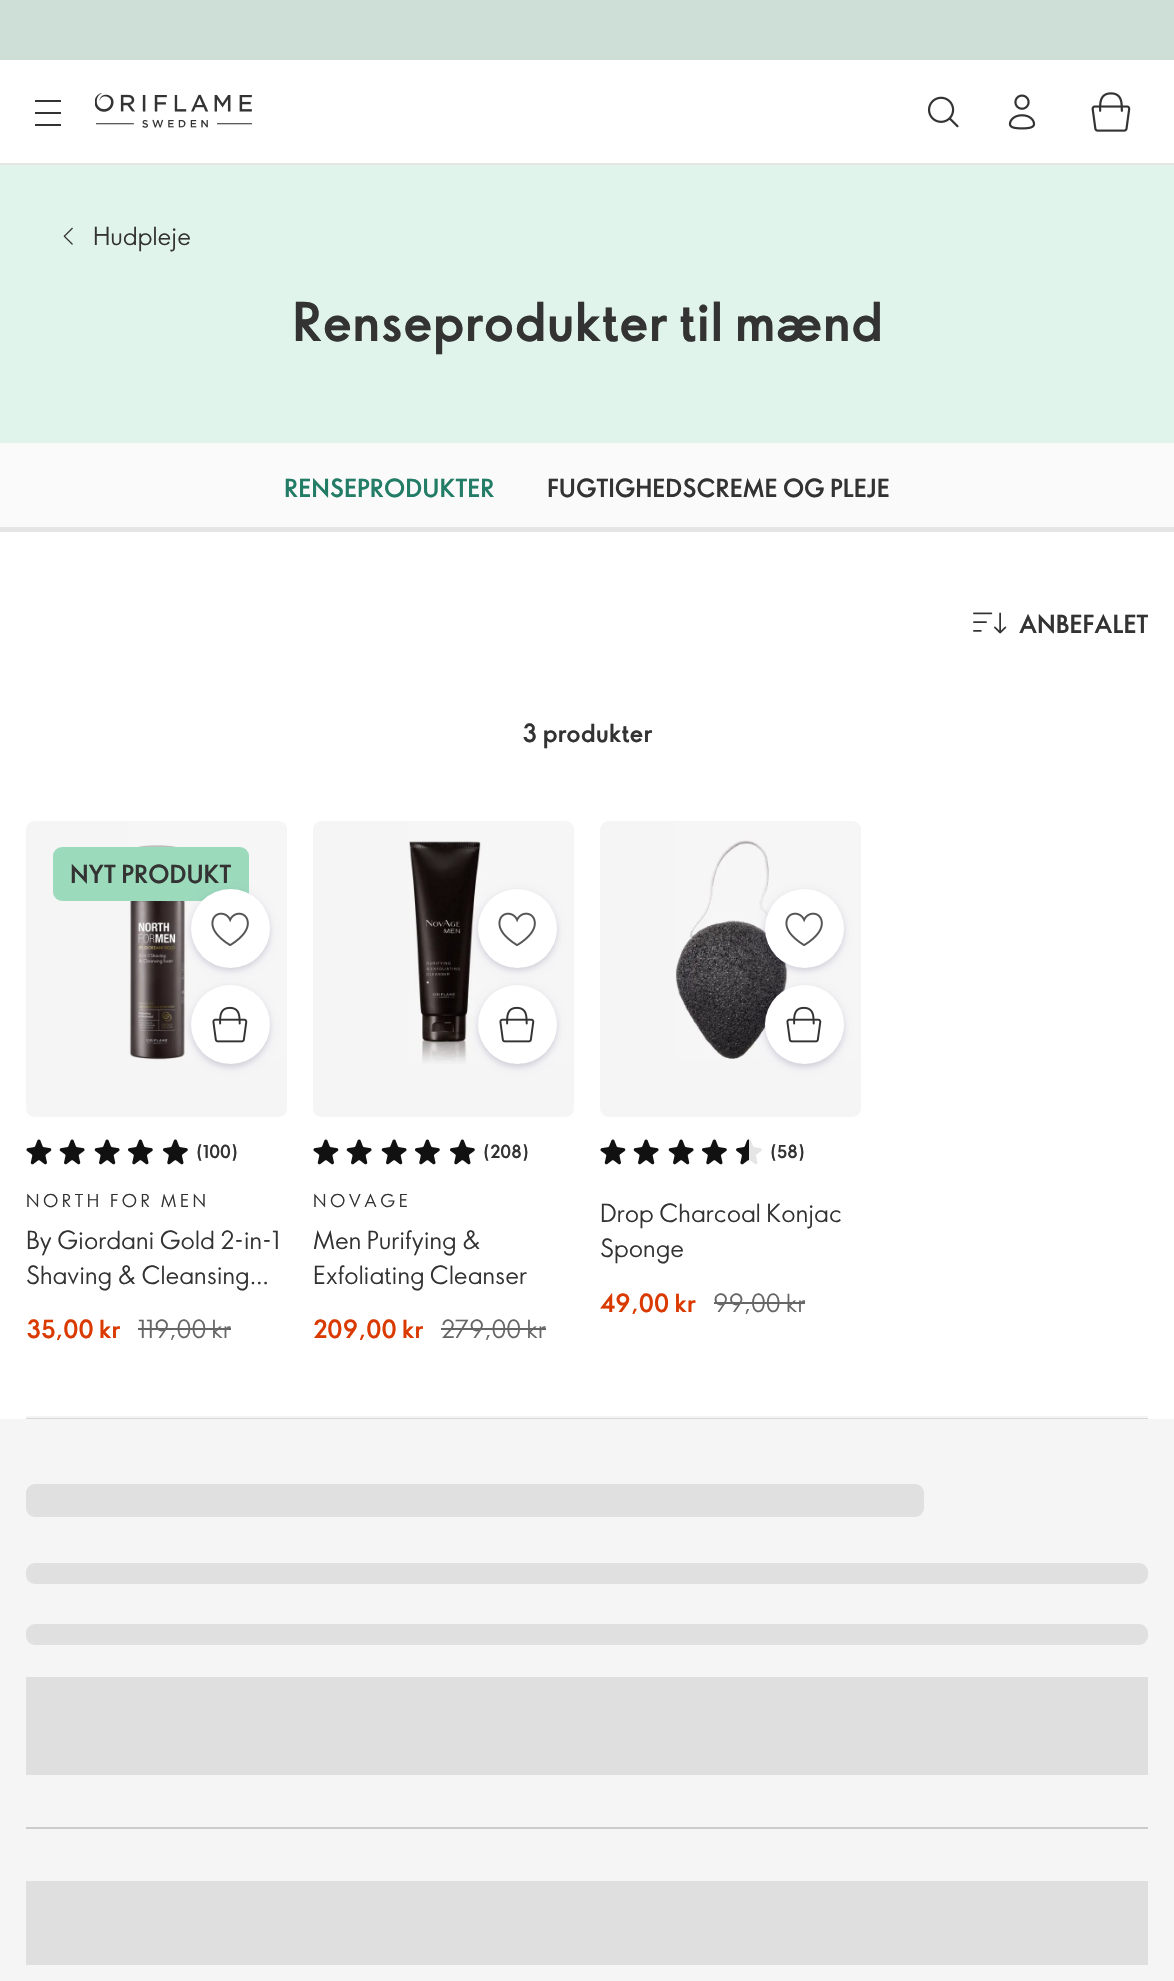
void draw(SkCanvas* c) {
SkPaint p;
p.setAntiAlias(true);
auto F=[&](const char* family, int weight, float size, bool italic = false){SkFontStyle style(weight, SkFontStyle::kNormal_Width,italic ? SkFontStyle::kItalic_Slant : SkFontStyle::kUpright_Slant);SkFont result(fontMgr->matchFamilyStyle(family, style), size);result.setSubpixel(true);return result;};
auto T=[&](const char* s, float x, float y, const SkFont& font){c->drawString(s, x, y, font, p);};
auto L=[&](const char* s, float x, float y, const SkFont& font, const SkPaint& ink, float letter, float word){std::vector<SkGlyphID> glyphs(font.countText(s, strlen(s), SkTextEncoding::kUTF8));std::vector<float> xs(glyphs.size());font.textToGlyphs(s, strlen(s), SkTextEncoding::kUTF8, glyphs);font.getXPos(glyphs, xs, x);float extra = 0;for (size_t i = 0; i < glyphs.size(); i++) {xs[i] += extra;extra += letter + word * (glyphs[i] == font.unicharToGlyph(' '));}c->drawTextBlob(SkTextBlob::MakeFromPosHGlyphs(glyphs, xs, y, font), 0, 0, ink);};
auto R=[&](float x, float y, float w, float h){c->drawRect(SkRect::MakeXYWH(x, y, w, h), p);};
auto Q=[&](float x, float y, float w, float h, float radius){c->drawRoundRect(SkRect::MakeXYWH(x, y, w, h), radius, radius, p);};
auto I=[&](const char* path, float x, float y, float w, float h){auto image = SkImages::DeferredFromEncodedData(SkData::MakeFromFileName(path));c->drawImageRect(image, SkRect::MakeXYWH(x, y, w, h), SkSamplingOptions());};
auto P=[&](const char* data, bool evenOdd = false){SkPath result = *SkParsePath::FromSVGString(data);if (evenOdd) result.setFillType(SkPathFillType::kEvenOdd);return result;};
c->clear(0xffffffff);
p.setColor(0xffe5e5e5);
R(0,163,1174,2);
p.setColor(0xffcedfd7);
R(0,0,1174,60);
p.setColor(0xff333333);
R(35,100,26,2);
R(35,112,26,2);
R(35,124,26,2);
I("1.png",95,93,157,35);
I("2.png",927,96,32,32);
I("3.png",1008,94,28,36);
I("4.png",1091,92,40,40);
p.setColor(0xffe1f4eb);
R(0,165,1174,278);
I("5.png",63,227,10,18);
auto f1 = F("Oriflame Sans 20",400,24.5);
p.setColor(0xff333333);
T("Hudpleje",93,245,f1);
auto f2 = F("Oriflame Sans 20",700,52.5);
T("Renseprodukter til mænd",292,341,f2);
p.setColor(0xfffafafa);
R(0,443,1174,84);
auto f3 = F("Oriflame Sans 20",700,24.5);
p.setColor(0xff227c66);
T("RENSEPRODUKTER",284,497,f3);
p.setColor(0xff333333);
T("FUGTIGHEDSCREME OG PLEJE",547,497,f3);
p.setColor(0xffe5e5e5);
R(0,527,1174,5);
I("6.png",973,612,34,22);
p.setColor(0xff333333);
T("ANBEFALET",1019,633,f3);
T("3 produkter",522,742,f3);
p.setColor(0xfff5f5f5);
c->drawPath(P("M35 821h243c5 0 9 4 9 9v252h-261v-252c0-5 4-9 9-9z"),p);
I("7.png",129,823,156,237);
p.setColor(0xff9cdabc);
Q(53,847,196,54,9);
p.setColor(0xff333333);
T("NYT PRODUKT",70,883,f3);
p.setColor(0x14000042);
p.setMaskFilter(SkMaskFilter::MakeBlur(kNormal_SkBlurStyle, 4.5));
c->drawRoundRect(SkRect::MakeXYWH(191,891,79,79),39.5,39.5,p);
p.setMaskFilter(nullptr);
p.setMaskFilter(SkMaskFilter::MakeBlur(kNormal_SkBlurStyle, 2));
c->drawRoundRect(SkRect::MakeXYWH(191,893,79,78),39,39,p);
p.setMaskFilter(nullptr);
p.setColor(0xffffffff);
c->drawCircle(230.5,928.5,39.5,p);
I("8.png",211,912,38,34);
p.setColor(0x14000042);
p.setMaskFilter(SkMaskFilter::MakeBlur(kNormal_SkBlurStyle, 4.5));
c->drawRoundRect(SkRect::MakeXYWH(191,987,79,79),39.5,39.5,p);
p.setMaskFilter(nullptr);
p.setMaskFilter(SkMaskFilter::MakeBlur(kNormal_SkBlurStyle, 2));
c->drawRoundRect(SkRect::MakeXYWH(191,989,79,79),39.5,39.5,p);
p.setMaskFilter(nullptr);
p.setColor(0xffffffff);
c->drawCircle(230.5,1024.5,39.5,p);
I("9.png",212,1006,36,37);
p.setColor(0xfff5f5f5);
c->drawPath(P("M26 1082h261v26c0 5-4 9-9 9h-243c-5 0-9-4-9-9z"),p);
I("10.png",26,1139,26,26);
I("11.png",59,1139,26,26);
I("11.png",94,1139,26,26);
I("12.png",128,1139,25,26);
I("12.png",163,1139,25,26);
auto f4 = F("Oriflame Sans 20",700,17.5);
p.setColor(0xff333333);
T("(100)",196,1158,f4);
auto f5 = F("Oriflame Sans 20",400,17.5);
L("NORTH FOR MEN",26,1207,f5,p,3.5,0);
T("By Giordani Gold 2-in-1",26,1249,f1);
T("Shaving & Cleansing…",26,1284,f1);
p.setColor(0xffda3a00);
T("35,00 kr",26,1338,f3);
p.setColor(0xff666666);
T("119,00 kr",138,1338,f1);
R(138,1328,93,2);
p.setColor(0xfff5f5f5);
c->drawPath(P("M322 821h243c5 0 9 4 9 9v252h-261v-252c0-5 4-9 9-9z"),p);
I("13.png",409,823,163,241);
p.setColor(0x14000042);
p.setMaskFilter(SkMaskFilter::MakeBlur(kNormal_SkBlurStyle, 4.5));
c->drawRoundRect(SkRect::MakeXYWH(478,891,79,79),39.5,39.5,p);
p.setMaskFilter(nullptr);
p.setMaskFilter(SkMaskFilter::MakeBlur(kNormal_SkBlurStyle, 2));
c->drawRoundRect(SkRect::MakeXYWH(478,893,79,78),39,39,p);
p.setMaskFilter(nullptr);
p.setColor(0xffffffff);
c->drawCircle(517.5,928.5,39.5,p);
I("8.png",498,912,38,34);
p.setColor(0x14000042);
p.setMaskFilter(SkMaskFilter::MakeBlur(kNormal_SkBlurStyle, 4.5));
c->drawRoundRect(SkRect::MakeXYWH(478,987,79,79),39.5,39.5,p);
p.setMaskFilter(nullptr);
p.setMaskFilter(SkMaskFilter::MakeBlur(kNormal_SkBlurStyle, 2));
c->drawRoundRect(SkRect::MakeXYWH(478,989,79,79),39.5,39.5,p);
p.setMaskFilter(nullptr);
p.setColor(0xffffffff);
c->drawCircle(517.5,1024.5,39.5,p);
I("9.png",499,1006,36,37);
p.setColor(0xfff5f5f5);
c->drawPath(P("M313 1082h261v26c0 5-4 9-9 9h-243c-5 0-9-4-9-9z"),p);
I("10.png",313,1139,26,26);
I("11.png",346,1139,26,26);
I("11.png",381,1139,26,26);
I("12.png",415,1139,25,26);
I("12.png",450,1139,25,26);
p.setColor(0xff333333);
T("(208)",483,1158,f4);
L("NOVAGE",313,1207,f5,p,3.5,0);
T("Men Purifying &",313,1249,f1);
T("Exfoliating Cleanser",313,1284,f1);
p.setColor(0xffda3a00);
T("209,00 kr",313,1338,f3);
p.setColor(0xff666666);
T("279,00 kr",441,1338,f1);
R(441,1328,105,2);
p.setColor(0xfff5f5f5);
c->drawPath(P("M609 821h243c5 0 9 4 9 9v252h-261v-252c0-5 4-9 9-9z"),p);
I("14.png",675,823,184,236);
p.setColor(0x14000042);
p.setMaskFilter(SkMaskFilter::MakeBlur(kNormal_SkBlurStyle, 4.5));
c->drawRoundRect(SkRect::MakeXYWH(765,891,79,79),39.5,39.5,p);
p.setMaskFilter(nullptr);
p.setMaskFilter(SkMaskFilter::MakeBlur(kNormal_SkBlurStyle, 2));
c->drawRoundRect(SkRect::MakeXYWH(765,893,79,78),39,39,p);
p.setMaskFilter(nullptr);
p.setColor(0xffffffff);
c->drawCircle(804.5,928.5,39.5,p);
I("8.png",785,912,38,34);
p.setColor(0x14000042);
p.setMaskFilter(SkMaskFilter::MakeBlur(kNormal_SkBlurStyle, 4.5));
c->drawRoundRect(SkRect::MakeXYWH(765,987,79,79),39.5,39.5,p);
p.setMaskFilter(nullptr);
p.setMaskFilter(SkMaskFilter::MakeBlur(kNormal_SkBlurStyle, 2));
c->drawRoundRect(SkRect::MakeXYWH(765,989,79,79),39.5,39.5,p);
p.setMaskFilter(nullptr);
p.setColor(0xffffffff);
c->drawCircle(804.5,1024.5,39.5,p);
I("9.png",786,1006,36,37);
p.setColor(0xfff5f5f5);
c->drawPath(P("M600 1082h261v26c0 5-4 9-9 9h-243c-5 0-9-4-9-9z"),p);
I("10.png",600,1139,26,26);
I("11.png",633,1139,26,26);
I("11.png",668,1139,26,26);
I("12.png",702,1139,25,26);
I("16.png",737,1139,25,26);
I("15.png",736,1139,13,26);
p.setColor(0xff333333);
T("(58)",770,1158,f4);
T("Drop Charcoal Konjac",600,1222,f1);
T("Sponge",600,1257,f1);
p.setColor(0xffda3a00);
T("49,00 kr",600,1312,f3);
p.setColor(0xff666666);
T("99,00 kr",713,1312,f1);
R(714,1302,91,2);
p.setColor(0xfff5f5f5);
R(26,1416,1122,2);
p.setColor(0xffd8d8d8);
R(26,1418,1122,1);
p.setColor(0xfff5f5f5);
R(0,1419,1174,562);
p.setColor(0xffe0e0e0);
Q(26,1484,898,33,9);
Q(26,1563,1122,21,9);
Q(26,1624,1122,21,9);
p.setColor(0xffdfdfdf);
R(26,1677,1122,98);
p.setColor(0xffcccccc);
R(26,1827,1122,2);
p.setColor(0xffdfdfdf);
R(26,1881,1122,84);
}
